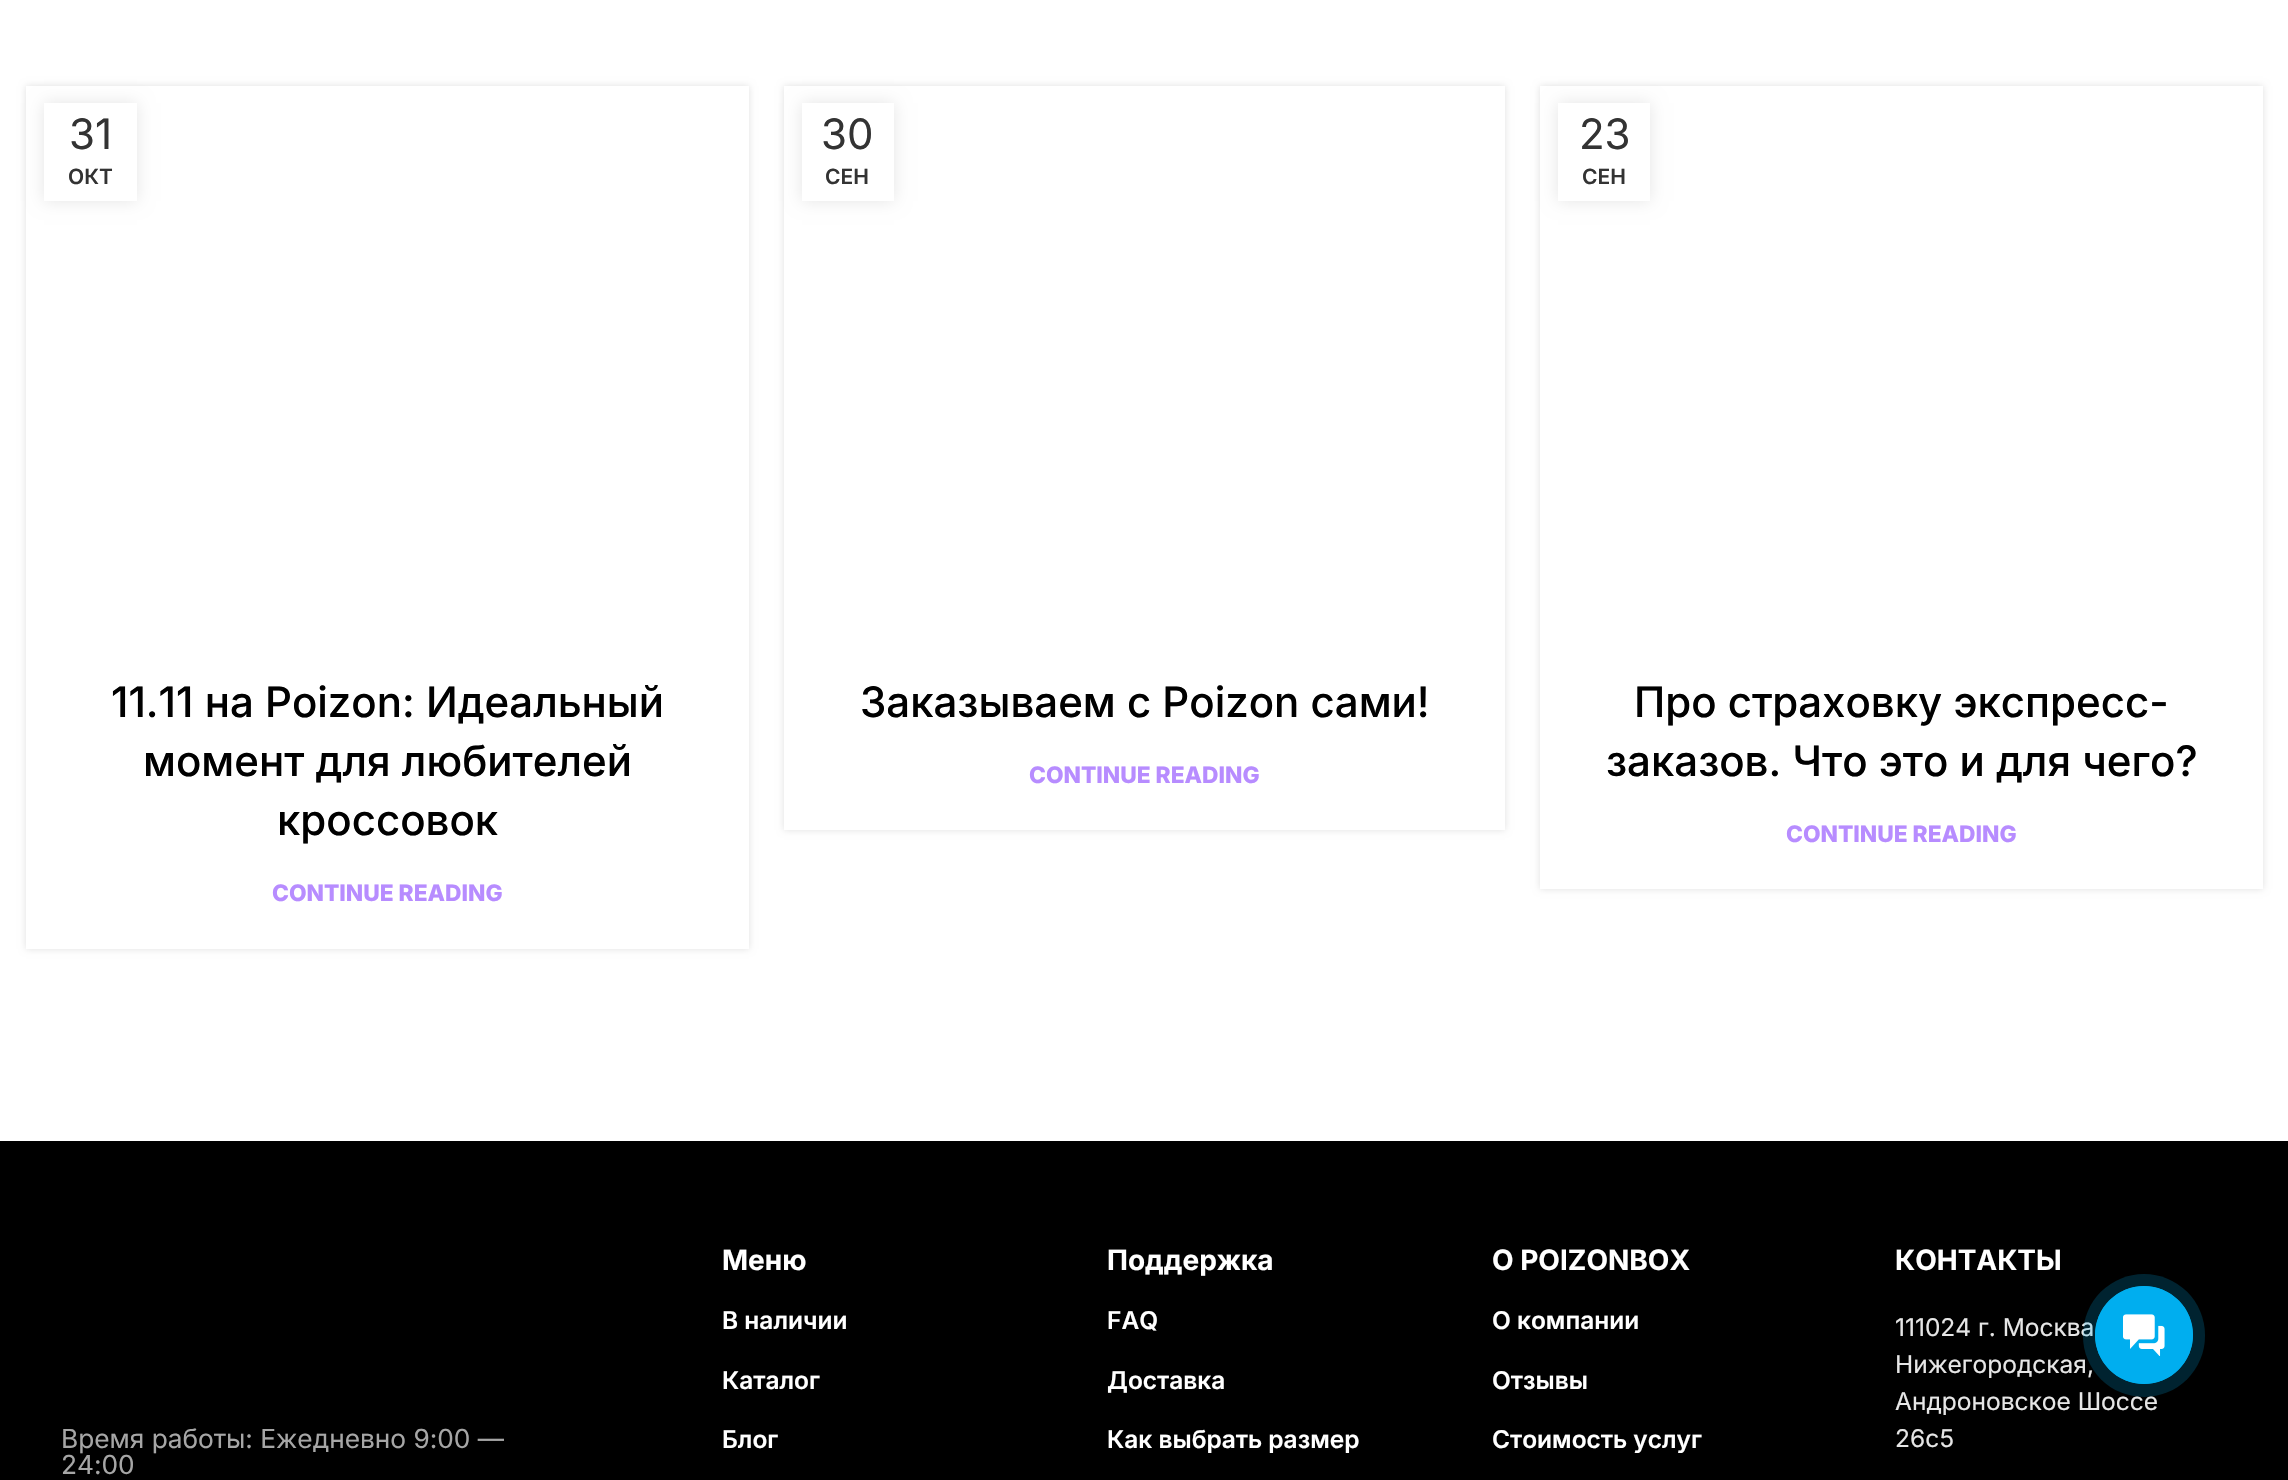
void draw(SkCanvas* c) {
SkPaint p;
p.setAntiAlias(true);
auto F=[&](const char* family, int weight, float size, bool italic = false){SkFontStyle style(weight, SkFontStyle::kNormal_Width,italic ? SkFontStyle::kItalic_Slant : SkFontStyle::kUpright_Slant);SkFont result(fontMgr->matchFamilyStyle(family, style), size);result.setSubpixel(true);return result;};
auto T=[&](const char* s, float x, float y, const SkFont& font){c->drawString(s, x, y, font, p);};
auto R=[&](float x, float y, float w, float h){c->drawRect(SkRect::MakeXYWH(x, y, w, h), p);};
auto Q=[&](float x, float y, float w, float h, float radius){c->drawRoundRect(SkRect::MakeXYWH(x, y, w, h), radius, radius, p);};
auto I=[&](const char* path, float x, float y, float w, float h){auto image = SkImages::DeferredFromEncodedData(SkData::MakeFromFileName(path));c->drawImageRect(image, SkRect::MakeXYWH(x, y, w, h), SkSamplingOptions());};
auto P=[&](const char* data, bool evenOdd = false){SkPath result = *SkParsePath::FromSVGString(data);if (evenOdd) result.setFillType(SkPathFillType::kEvenOdd);return result;};
c->clear(0xffffffff);
c->save();
c->clipPath(P("M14 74h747v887h-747zm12 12h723v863h-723z",true),true);
p.setColor(0x1f000000);
p.setMaskFilter(SkMaskFilter::MakeBlur(kNormal_SkBlurStyle, 3.5));
c->drawRect(SkRect::MakeXYWH(26,86,723,863),p);
p.setMaskFilter(nullptr);
c->restore();
p.setColor(0x1a000000);
p.setMaskFilter(SkMaskFilter::MakeBlur(kNormal_SkBlurStyle, 8));
c->drawRect(SkRect::MakeXYWH(44,103,93,98),p);
p.setMaskFilter(nullptr);
p.setColor(0xffffffff);
R(44,103,93,98);
auto f1 = F("Inter",400,42);
p.setColor(0xff333333);
T("31",69,149,f1);
auto f2 = F("Inter",600,21);
T("ОКТ",68,184,f2);
p.setColor(0xffffffff);
R(26,630,723,319);
auto f3 = F("Inter",500,42);
p.setColor(0xff000000);
T("11.11 на Poizon: Идеальный",111,717,f3);
T("момент для любителей",143,776,f3);
T("кроссовок",277,835,f3);
auto f4 = F("Inter",800,22.75);
p.setColor(0xffb78cff);
T("CONTINUE READING",272,901,f4);
c->save();
c->clipPath(P("M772 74h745v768h-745zm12 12h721v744h-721z",true),true);
p.setColor(0x1f000000);
p.setMaskFilter(SkMaskFilter::MakeBlur(kNormal_SkBlurStyle, 3.5));
c->drawRect(SkRect::MakeXYWH(784,86,721,744),p);
p.setMaskFilter(nullptr);
c->restore();
p.setColor(0x1a000000);
p.setMaskFilter(SkMaskFilter::MakeBlur(kNormal_SkBlurStyle, 8));
c->drawRect(SkRect::MakeXYWH(802,103,92,98),p);
p.setMaskFilter(nullptr);
p.setColor(0xffffffff);
R(802,103,92,98);
p.setColor(0xff333333);
T("30",821,149,f1);
T("СЕН",825,184,f2);
p.setColor(0xffffffff);
R(784,829,721,1);
p.setColor(0xff000000);
T("Заказываем с Poizon сами!",860,717,f3);
p.setColor(0xffb78cff);
T("CONTINUE READING",1029,783,f4);
c->save();
c->clipPath(P("M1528 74h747v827h-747zm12 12h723v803h-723z",true),true);
p.setColor(0x1f000000);
p.setMaskFilter(SkMaskFilter::MakeBlur(kNormal_SkBlurStyle, 3.5));
c->drawRect(SkRect::MakeXYWH(1540,86,723,803),p);
p.setMaskFilter(nullptr);
c->restore();
p.setColor(0x1a000000);
p.setMaskFilter(SkMaskFilter::MakeBlur(kNormal_SkBlurStyle, 8));
c->drawRect(SkRect::MakeXYWH(1558,103,92,98),p);
p.setMaskFilter(nullptr);
p.setColor(0xffffffff);
R(1558,103,92,98);
p.setColor(0xff333333);
T("23",1579,149,f1);
T("СЕН",1582,184,f2);
p.setColor(0xffffffff);
R(2262,630,1,258);
p.setColor(0xff000000);
T("Про страховку экспресс-",1634,717,f3);
T("заказов. Что это и для чего?",1606,776,f3);
p.setColor(0xffb78cff);
T("CONTINUE READING",1786,842,f4);
p.setColor(0xff000000);
R(0,1141,2288,339);
auto f5 = F("Inter",400,26.25);
p.setColor(0xffa6a6a6);
T("Время работы: Ежедневно 9:00 —",61,1448,f5);
T("24:00",61,1474,f5);
auto f6 = F("Inter",700,28);
p.setColor(0xffffffff);
T("Меню",722,1270,f6);
auto f7 = F("Inter",600,24.5);
T("В наличии",722,1329,f7);
T("Каталог",722,1389,f7);
T("Блог",722,1448,f7);
T("Поддержка",1107,1270,f6);
T("FAQ",1107,1329,f7);
T("Доставка",1107,1389,f7);
T("Как выбрать размер",1107,1448,f7);
T("О POIZONBOX",1492,1270,f6);
T("О компании",1492,1329,f7);
T("Отзывы",1492,1389,f7);
T("Стоимость услуг",1492,1448,f7);
T("КОНТАКТЫ",1895,1270,f6);
auto f8 = F("Inter",400,24.5);
p.setColor(0xffe6e6e6);
T("111024 г. Москва",1895,1336,f8);
T("Нижегородская,",1895,1373,f8);
T("Андроновское Шоссе",1895,1410,f8);
T("26с5",1895,1447,f8);
p.setColor(0x3300aeef);
Q(2083,1274,122,123,61);
p.setStroke(true);
p.setStrokeWidth(1);
p.setColor(0xff00aeef);
c->drawCircle(2144,1335,48.5,p);
p.setStroke(false);
c->drawCircle(2144,1335,49,p);
I("1.png",2123,1314,42,42);
}
